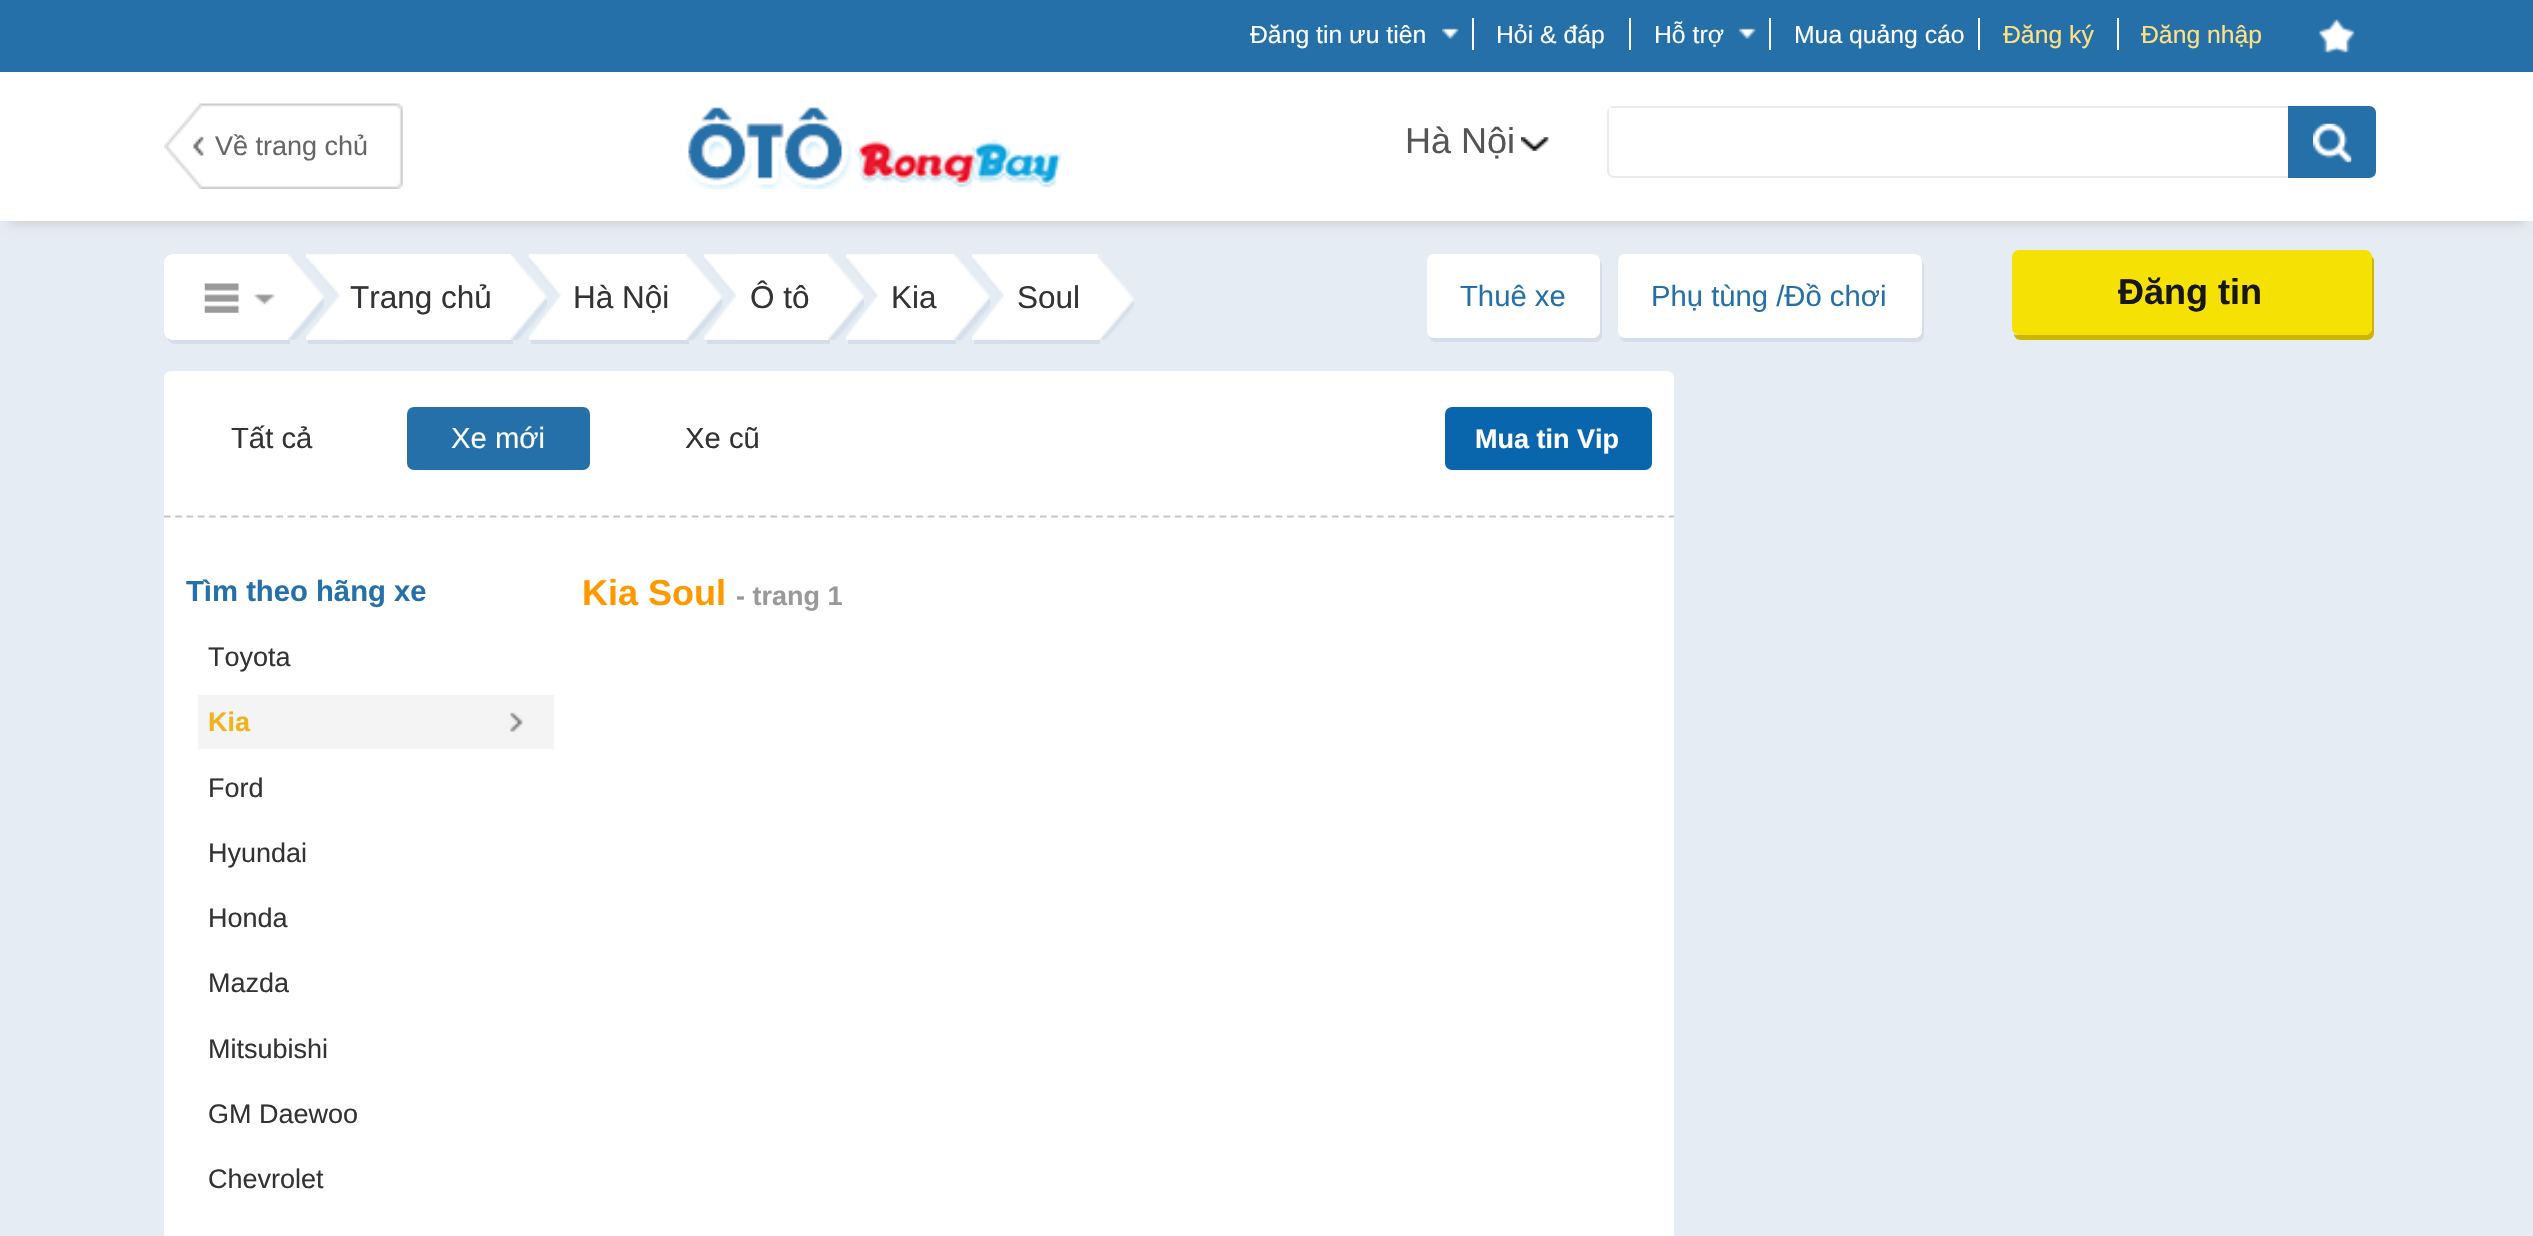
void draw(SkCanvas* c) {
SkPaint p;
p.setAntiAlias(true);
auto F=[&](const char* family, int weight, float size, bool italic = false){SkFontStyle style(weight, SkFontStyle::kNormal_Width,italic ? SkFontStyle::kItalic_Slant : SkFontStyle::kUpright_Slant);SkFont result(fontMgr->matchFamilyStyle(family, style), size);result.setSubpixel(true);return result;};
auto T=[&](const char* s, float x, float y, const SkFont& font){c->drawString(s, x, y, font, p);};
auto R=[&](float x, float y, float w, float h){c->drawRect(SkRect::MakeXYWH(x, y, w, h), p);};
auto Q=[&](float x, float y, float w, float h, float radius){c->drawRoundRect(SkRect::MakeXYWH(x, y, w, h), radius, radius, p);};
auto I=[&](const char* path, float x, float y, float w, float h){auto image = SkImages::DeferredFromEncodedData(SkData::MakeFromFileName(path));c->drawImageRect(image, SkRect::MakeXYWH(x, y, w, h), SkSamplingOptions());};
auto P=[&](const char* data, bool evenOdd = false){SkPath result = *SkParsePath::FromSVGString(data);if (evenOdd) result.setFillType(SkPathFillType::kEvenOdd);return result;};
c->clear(0xffe5ecf4);
p.setColor(0xff2570a8);
R(0,0,2533,72);
I("1.png",1442,28,17,11);
p.setColor(0xffffffff);
R(1472,18,2,32);
auto f1 = F("Liberation Sans",400,24.75);
T("Đăng tin ưu tiên",1250,43,f1);
R(1629,18,2,32);
T("Hỏi & đáp",1496,43,f1);
I("2.png",1739,28,17,11);
R(1769,18,2,32);
T("Hỗ trợ",1654,43,f1);
R(1978,18,2,32);
T("Mua quảng cáo",1794,43,f1);
R(2117,18,2,32);
p.setColor(0xffffe184);
T("Đăng ký",2003,43,f1);
T("Đăng nhập",2141,43,f1);
I("3.png",2319,19,36,34);
p.setColor(0xffcccccc);
p.setMaskFilter(SkMaskFilter::MakeBlur(kNormal_SkBlurStyle, 5.5));
c->drawRect(SkRect::MakeXYWH(9,92,2516,131),p);
p.setMaskFilter(nullptr);
p.setColor(0xffffffff);
R(0,72,2533,149);
I("4.png",164,103,239,86);
auto f2 = F("Liberation Sans",400,27);
p.setColor(0xff666666);
T("Về trang chủ",215,155,f2);
I("5.png",684,107,378,82);
auto f3 = F("Liberation Sans",400,36);
p.setColor(0xff555555);
T("Hà Nội",1405,153,f3);
I("6.png",1521,137,28,14);
p.setStroke(true);
p.setStrokeWidth(2);
p.setColor(0xffebebeb);
c->drawRoundRect(SkRect::MakeXYWH(1608,107,767,70),6,6,p);
p.setStroke(false);
p.setColor(0xffffffff);
R(1609,108,4,4);
p.setColor(0xff2570a8);
c->drawPath(P("M2288 106h81c4 0 7 3 7 7v58c0 4-3 7-7 7h-81z"),p);
I("7.png",2313,123,39,40);
p.setColor(0xffd3deea);
c->drawPath(P("M167 338c1 3 5 6 9 6h114v-85h-2v81h-115c-2 0-4-1-6-2z"),p);
p.setColor(0xffffffff);
c->drawPath(P("M173 254h115v86h-115c-5 0-9-4-9-9v-68c0-5 4-9 9-9z"),p);
I("8.png",204,283,71,30);
I("9.png",288,257,36,83);
p.setColor(0xffd3deea);
c->drawPath(P("M308 340v4h205v-85h-2v81z"),p);
I("10.png",306,254,34,86);
I("11.png",288,254,36,86);
p.setColor(0xffffffff);
R(340,254,171,86);
auto f4 = F("Liberation Sans",400,31.5);
p.setColor(0xff333333);
T("Trang chủ",350,308,f4);
I("12.png",511,257,36,83);
p.setColor(0xffd3deea);
c->drawPath(P("M531 340v4h158v-85h-3v81z"),p);
I("13.png",528,254,35,86);
I("14.png",510,254,37,86);
p.setColor(0xffffffff);
R(563,254,123,86);
p.setColor(0xff333333);
T("Hà Nội",573,308,f4);
I("15.png",686,257,37,83);
p.setColor(0xffd3deea);
c->drawPath(P("M707 340v4h123v-85h-2v81z"),p);
I("16.png",704,254,34,86);
I("17.png",686,254,37,86);
p.setColor(0xffffffff);
R(738,254,90,86);
p.setColor(0xff333333);
T("Ô tô",750,308,f4);
I("9.png",828,257,36,83);
p.setColor(0xffd3deea);
c->drawPath(P("M848 340v4h108v-85h-2v81z"),p);
I("18.png",846,254,34,86);
I("19.png",828,254,36,86);
p.setColor(0xffffffff);
R(880,254,74,86);
p.setColor(0xff333333);
T("Kia",891,308,f4);
I("9.png",954,257,36,83);
p.setColor(0xffd3deea);
c->drawPath(P("M974 340v4h126v-85h-2v81z"),p);
I("20.png",972,254,34,86);
I("21.png",954,254,36,86);
p.setColor(0xffffffff);
R(1006,254,92,86);
p.setColor(0xff333333);
T("Soul",1017,308,f4);
I("9.png",1098,257,36,83);
p.setColor(0xffd3deea);
c->drawPath(P("M1429 336c1 3 3 6 7 6h159c4 0 7-3 7-7v-69c0-2-1-4-2-5v70c0 3-3 7-7 7h-160c-1 0-3-1-4-2z"),p);
p.setColor(0xffffffff);
Q(1427,254,173,84,7);
auto f5 = F("Liberation Sans",400,29.25);
p.setColor(0xff2570a8);
T("Thuê xe",1460,306,f5);
p.setColor(0xffd3deea);
c->drawPath(P("M1620 336c0 3 3 6 7 6h290c4 0 7-3 7-7v-69c0-2-1-4-3-5l1 70c0 3-4 7-7 7h-291c-1 0-3-1-4-2z"),p);
p.setColor(0xffffffff);
Q(1618,254,304,84,7);
p.setColor(0xff2570a8);
T("Phụ tùng /Đồ chơi",1651,306,f5);
p.setColor(0xffcdb500);
c->drawPath(P("M2014 334c0 3 3 6 7 6h346c4 0 7-3 7-7v-72c0-2-1-4-3-5l1 72c0 4-4 7-7 7h-347c-1 0-3 0-4-1z"),p);
p.setColor(0xfff6e104);
Q(2012,250,360,85,7);
auto f6 = F("Liberation Sans",700,36);
p.setColor(0xff171717);
T("Đăng tin",2118,304,f6);
p.setColor(0xffffffff);
c->drawPath(P("M171 371h1496c4 0 7 3 7 7v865h-1510v-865c0-4 3-7 7-7z"),p);
p.setStroke(true);
p.setStrokeWidth(2.2);
p.setColor(0xffc7c7c7);
p.setPathEffect(SkDashPathEffect::Make({{6.75f,4.48f}}, 0));
c->drawPath(P("M164 516.5h1510"),p);
p.setPathEffect(nullptr);
p.setStroke(false);
p.setColor(0xff333333);
T("Tất cả",231,448,f5);
p.setColor(0xff2570a8);
Q(407,407,183,63,7);
p.setColor(0xffffffff);
T("Xe mới",451,448,f5);
p.setColor(0xff333333);
T("Xe cũ",685,448,f5);
p.setColor(0xff0966ac);
Q(1445,407,207,63,7);
auto f7 = F("Liberation Sans",700,27);
p.setColor(0xffffffff);
T("Mua tin Vip",1475,448,f7);
auto f8 = F("Liberation Sans",700,29.25);
p.setColor(0xff2570a8);
T("Tìm theo hãng xe",186,601,f8);
p.setColor(0xff333333);
T("Toyota",208,666,f2);
p.setColor(0xfff4f4f4);
R(198,695,356,54);
I("22.png",509,711,14,21);
p.setColor(0xfff0b31a);
T("Kia",208,731,f7);
p.setColor(0xff333333);
T("Ford",208,797,f2);
T("Hyundai",208,862,f2);
T("Honda",208,927,f2);
T("Mazda",208,992,f2);
T("Mitsubishi",208,1058,f2);
T("GM Daewoo",208,1123,f2);
T("Chevrolet",208,1188,f2);
p.setColor(0xffff9900);
T("Kia Soul",582,605,f6);
p.setColor(0xff999999);
T("- trang 1",736,605,f7);
}
